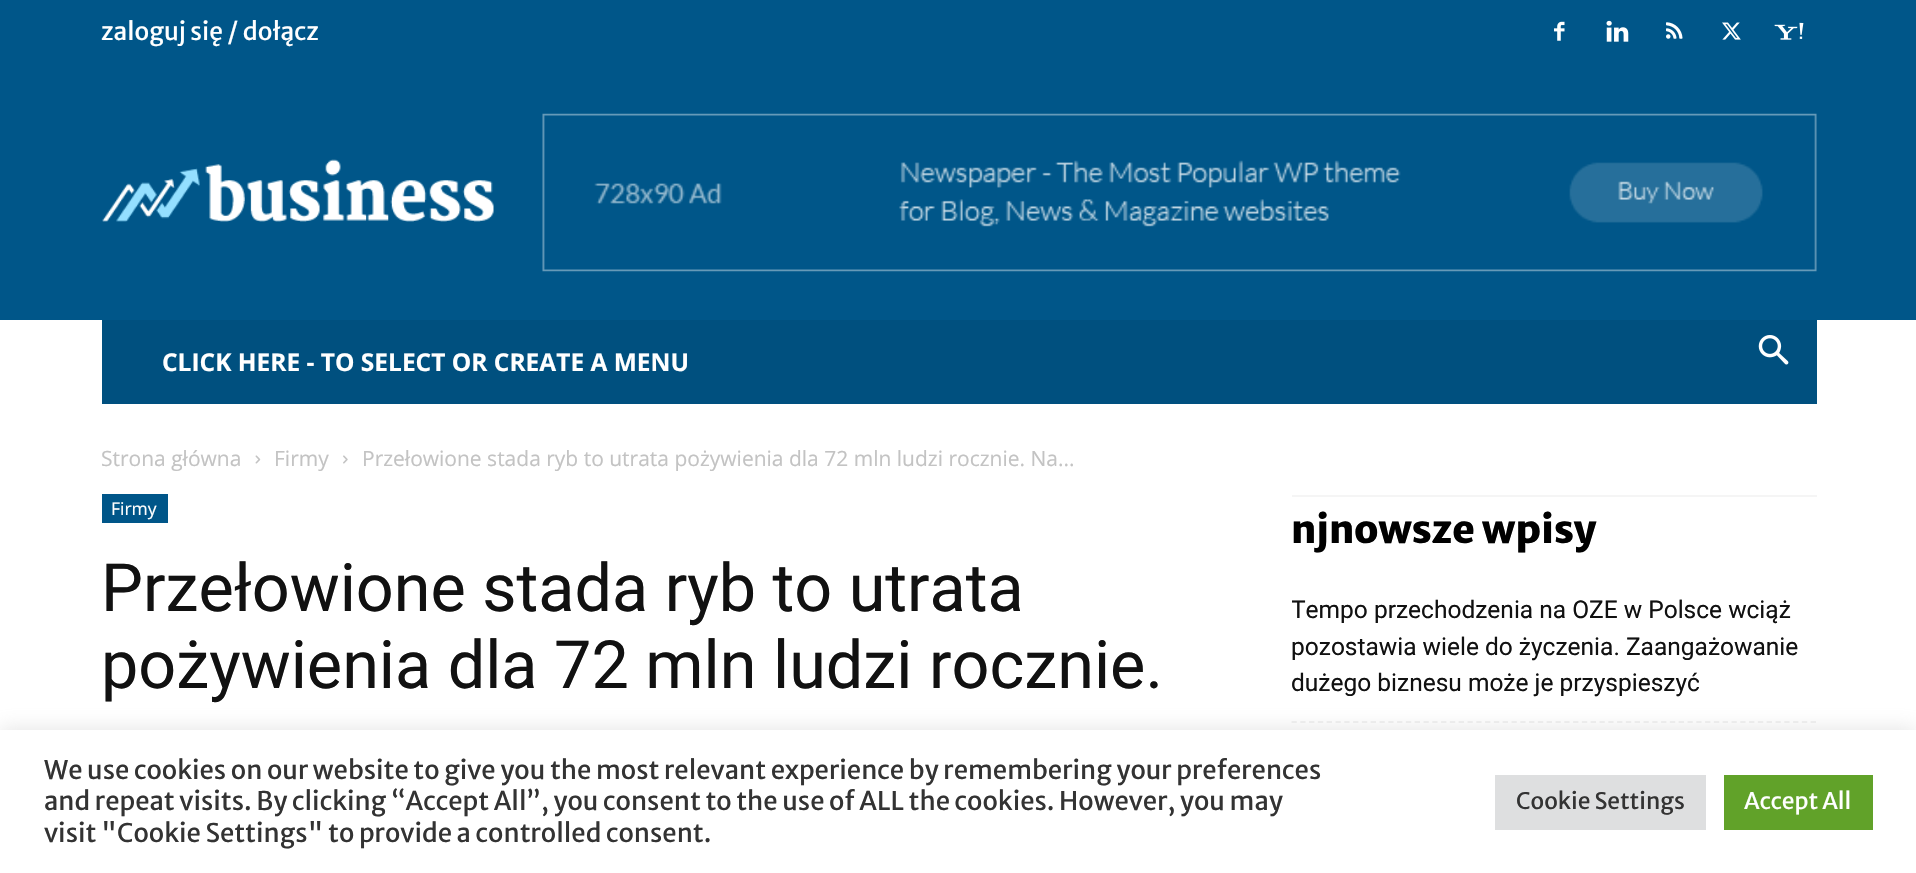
void draw(SkCanvas* c) {
SkPaint p;
p.setAntiAlias(true);
auto F=[&](const char* family, int weight, float size, bool italic = false){SkFontStyle style(weight, SkFontStyle::kNormal_Width,italic ? SkFontStyle::kItalic_Slant : SkFontStyle::kUpright_Slant);SkFont result(fontMgr->matchFamilyStyle(family, style), size);result.setSubpixel(true);return result;};
auto T=[&](const char* s, float x, float y, const SkFont& font){c->drawString(s, x, y, font, p);};
auto R=[&](float x, float y, float w, float h){c->drawRect(SkRect::MakeXYWH(x, y, w, h), p);};
auto I=[&](const char* path, float x, float y, float w, float h){auto image = SkImages::DeferredFromEncodedData(SkData::MakeFromFileName(path));c->drawImageRect(image, SkRect::MakeXYWH(x, y, w, h), SkSamplingOptions());};
auto P=[&](const char* data, bool evenOdd = false){SkPath result = *SkParsePath::FromSVGString(data);if (evenOdd) result.setFillType(SkPathFillType::kEvenOdd);return result;};
c->clear(0xffffffff);
p.setColor(0xff005689);
R(0,0,1916,320);
I("1.png",102,159,392,63);
I("2.png",542,113,1275,159);
auto f1 = F("Merriweather Sans",400,24.5);
p.setColor(0xffffffff);
T("zaloguj się / dołącz",101,40,f1);
I("3.png",1554,21,11,20);
I("4.png",1606,20,23,22);
I("5.png",1666,22,17,17);
I("6.png",1722,22,19,18);
I("7.png",1774,22,30,18);
p.setColor(0xff00507f);
R(102,320,1715,84);
auto f2 = F("Open Sans",700,24.5);
p.setColor(0xffffffff);
T("CLICK HERE - TO SELECT OR CREATE A MENU",162,371,f2);
I("8.png",1758,335,31,30);
auto f3 = F("Open Sans",400,21);
p.setColor(0xffc3c3c3);
T("Strona główna",101,466,f3);
I("9.png",255,455,6,9);
T("Firmy",274,466,f3);
I("10.png",343,455,5,9);
T("Przełowione stada ryb to utrata pożywienia dla 72 mln ludzi rocznie. Na...",362,466,f3);
p.setColor(0xff005689);
R(102,494,66,29);
auto f4 = F("Open Sans",400,17.5);
p.setColor(0xffffffff);
T("Firmy",111,515,f4);
auto f5 = F("Roboto",400,66.5);
p.setColor(0xff111111);
T("Przełowione stada ryb to utrata",101,611,f5);
T("pożywienia dla 72 mln ludzi rocznie.",101,688,f5);
p.setColor(0xfff5f5f5);
R(1292,495,525,2);
auto f6 = F("Merriweather Sans",800,38.5);
p.setColor(0xff000000);
T("njnowsze wpisy",1291,543,f6);
p.setStroke(true);
p.setStrokeWidth(1.8);
p.setColor(0xfff1f1f1);
p.setPathEffect(SkDashPathEffect::Make({{5.25f,3.55f}}, 0));
c->drawPath(P("M1291.5 722h525"),p);
p.setPathEffect(nullptr);
c->save();
c->clipRect(SkRect::MakeXYWH(1292,494,525,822));
auto f7 = F("Roboto",400,24.5);
p.setStroke(false);
p.setColor(0xff111111);
T("Tempo przechodzenia na OZE w Polsce wciąż",1291,618,f7);
c->restore();
T("pozostawia wiele do życzenia. Zaangażowanie",1291,655,f7);
c->save();
c->clipRect(SkRect::MakeXYWH(1292,494,525,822));
T("dużego biznesu może je przyspieszyć",1291,691,f7);
c->restore();
p.setColor(0x4dacabab);
p.setMaskFilter(SkMaskFilter::MakeBlur(kNormal_SkBlurStyle, 9));
c->drawRect(SkRect::MakeXYWH(0,728,1916,144),p);
p.setMaskFilter(nullptr);
p.setColor(0xffffffff);
R(0,730,1916,143);
auto f8 = F("Merriweather Sans",400,25.65);
p.setColor(0xff333333);
T("We use cookies on our website to give you the most relevant experience by remembering your preferences",44,779,f8);
T("and repeat visits. By clicking “Accept All”, you consent to the use of ALL the cookies. However, you may",44,810,f8);
T("visit \"Cookie Settings\" to provide a controlled consent.",44,842,f8);
p.setColor(0xffdedfe0);
R(1495,775,211,55);
auto f9 = F("Merriweather Sans",400,22.75);
p.setColor(0xff333333);
T("Cookie Settings",1516,809,f9);
p.setColor(0xff61a229);
R(1724,775,149,55);
p.setColor(0xffffffff);
T("Accept All",1744,809,f9);
}
